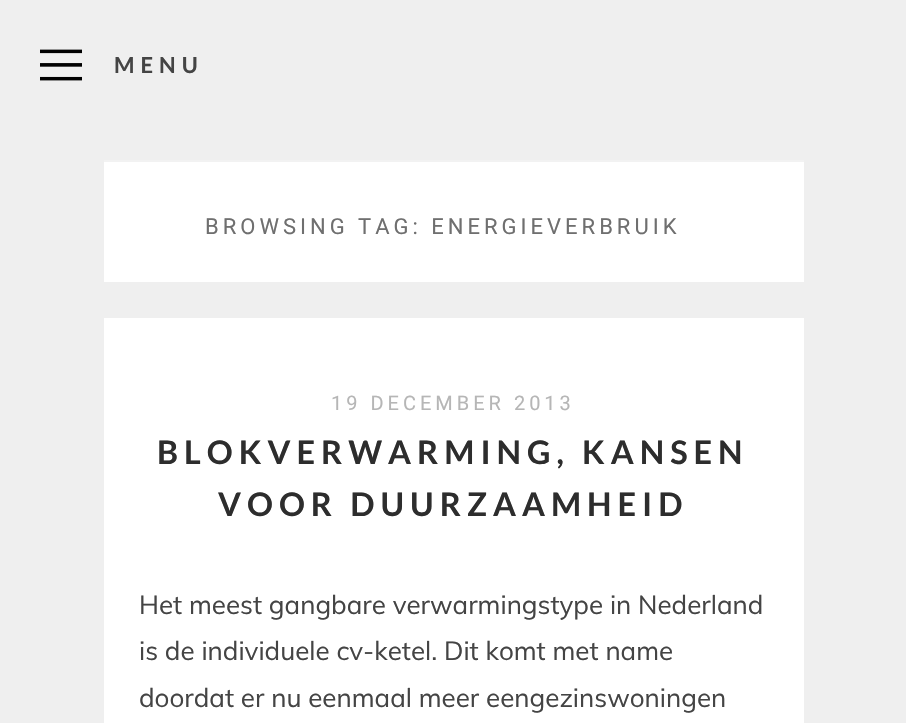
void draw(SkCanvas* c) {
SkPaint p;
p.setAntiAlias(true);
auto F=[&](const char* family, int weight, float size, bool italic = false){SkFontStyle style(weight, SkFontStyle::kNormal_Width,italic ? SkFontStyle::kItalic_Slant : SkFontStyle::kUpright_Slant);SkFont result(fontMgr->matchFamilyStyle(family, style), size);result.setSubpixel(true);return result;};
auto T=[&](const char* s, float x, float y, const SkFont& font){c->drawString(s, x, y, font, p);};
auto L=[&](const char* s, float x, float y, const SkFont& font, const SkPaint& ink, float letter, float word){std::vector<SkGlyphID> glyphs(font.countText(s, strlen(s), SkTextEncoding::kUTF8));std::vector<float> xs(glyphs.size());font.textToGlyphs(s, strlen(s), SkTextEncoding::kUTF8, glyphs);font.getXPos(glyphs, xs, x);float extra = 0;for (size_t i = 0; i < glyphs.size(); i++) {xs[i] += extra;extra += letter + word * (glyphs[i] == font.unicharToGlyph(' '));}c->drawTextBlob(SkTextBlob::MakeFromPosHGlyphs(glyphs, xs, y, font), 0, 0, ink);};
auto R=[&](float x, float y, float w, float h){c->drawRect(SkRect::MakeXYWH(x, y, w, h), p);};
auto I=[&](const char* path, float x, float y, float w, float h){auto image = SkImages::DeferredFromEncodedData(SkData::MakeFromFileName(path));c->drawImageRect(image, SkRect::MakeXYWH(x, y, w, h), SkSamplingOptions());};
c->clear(0xffefefef);
I("1.png",40,49,42,32);
auto f1 = F("Lato",700,22);
p.setColor(0xff444444);
L("MENU",114,73,f1,p,6,0);
p.setColor(0xffffffff);
R(104,162,700,120);
p.setColor(0xfff2f2f2);
R(104,160,700,2);
auto f2 = F("Roboto",400,22);
p.setColor(0xff6f6f6f);
L("BROWSING TAG: ENERGIEVERBRUIK",205,234,f2,p,4,0);
p.setColor(0xffffffff);
R(104,318,700,405);
auto f3 = F("Roboto",400,20);
p.setColor(0xffb6b6b6);
L("19 DECEMBER 2013",331,410,f3,p,4,0);
auto f4 = F("Lato",700,32.4);
p.setColor(0xff2d2d2d);
L("BLOKVERWARMING, KANSEN",157,464,f4,p,6,0);
L("VOOR DUURZAAMHEID",218,516,f4,p,6,0);
auto f5 = F("Muli",400,26);
p.setColor(0xff444444);
T("Het meest gangbare verwarmingstype in Nederland",139,614,f5);
T("is de individuele cv-ketel. Dit komt met name",139,660,f5);
T("doordat er nu eenmaal meer eengezinswoningen",139,707,f5);
}
